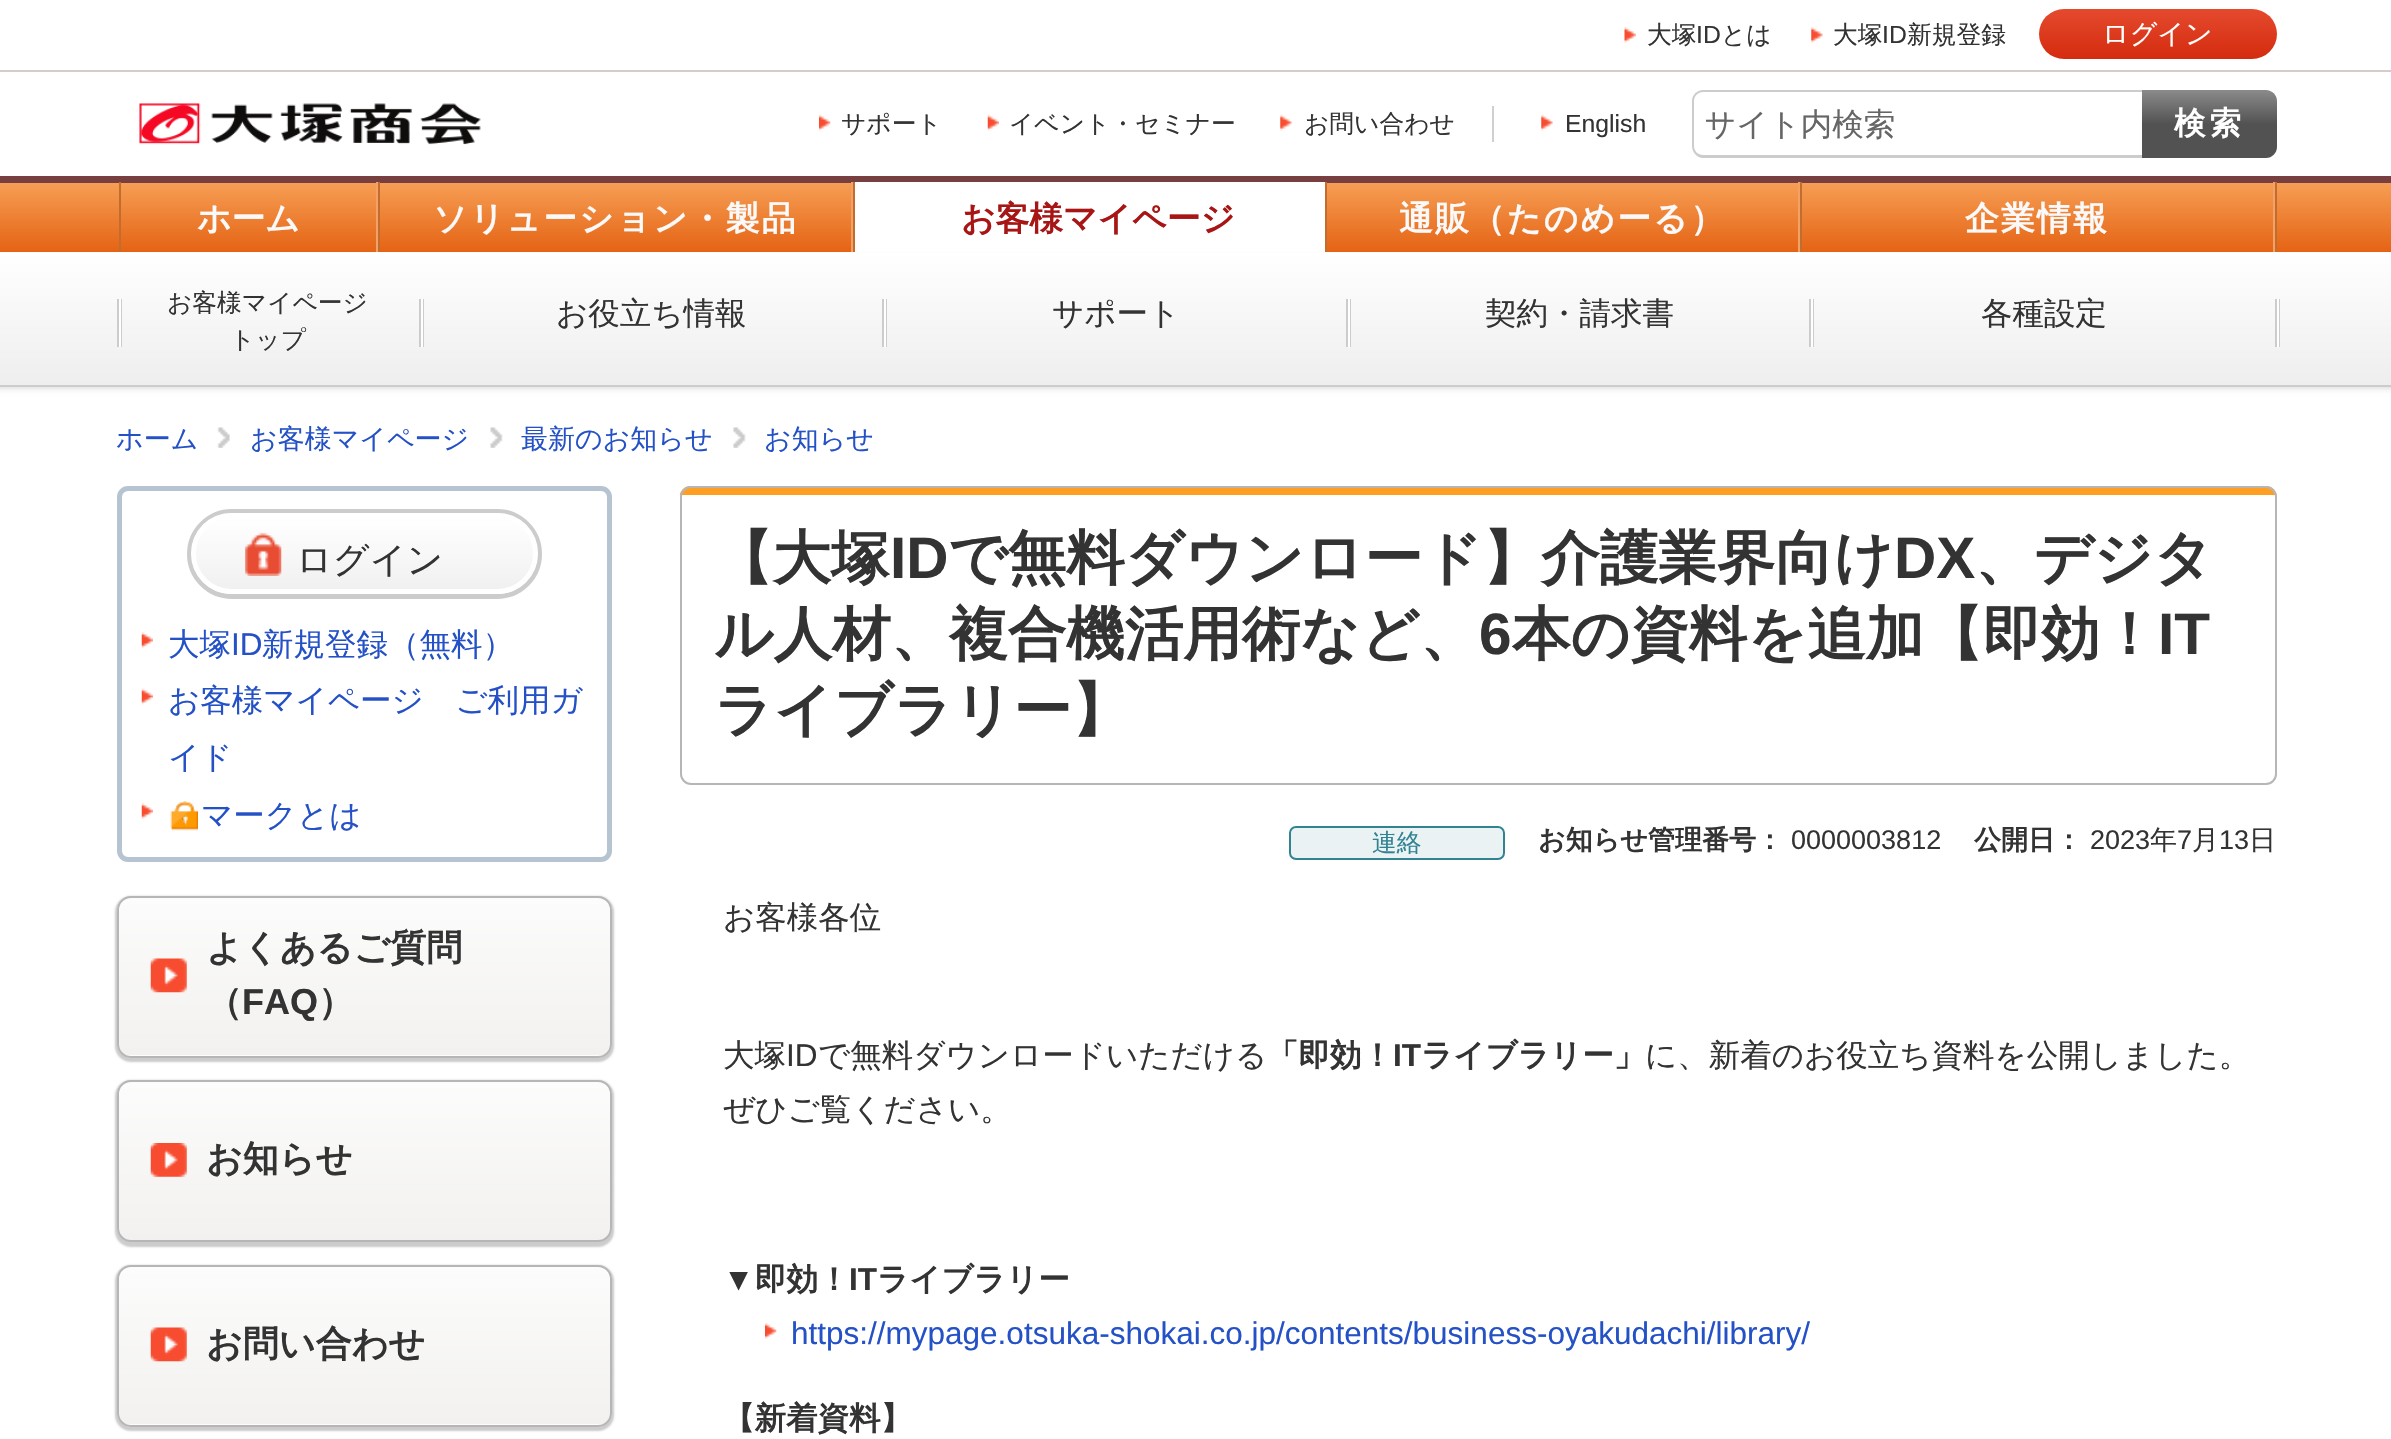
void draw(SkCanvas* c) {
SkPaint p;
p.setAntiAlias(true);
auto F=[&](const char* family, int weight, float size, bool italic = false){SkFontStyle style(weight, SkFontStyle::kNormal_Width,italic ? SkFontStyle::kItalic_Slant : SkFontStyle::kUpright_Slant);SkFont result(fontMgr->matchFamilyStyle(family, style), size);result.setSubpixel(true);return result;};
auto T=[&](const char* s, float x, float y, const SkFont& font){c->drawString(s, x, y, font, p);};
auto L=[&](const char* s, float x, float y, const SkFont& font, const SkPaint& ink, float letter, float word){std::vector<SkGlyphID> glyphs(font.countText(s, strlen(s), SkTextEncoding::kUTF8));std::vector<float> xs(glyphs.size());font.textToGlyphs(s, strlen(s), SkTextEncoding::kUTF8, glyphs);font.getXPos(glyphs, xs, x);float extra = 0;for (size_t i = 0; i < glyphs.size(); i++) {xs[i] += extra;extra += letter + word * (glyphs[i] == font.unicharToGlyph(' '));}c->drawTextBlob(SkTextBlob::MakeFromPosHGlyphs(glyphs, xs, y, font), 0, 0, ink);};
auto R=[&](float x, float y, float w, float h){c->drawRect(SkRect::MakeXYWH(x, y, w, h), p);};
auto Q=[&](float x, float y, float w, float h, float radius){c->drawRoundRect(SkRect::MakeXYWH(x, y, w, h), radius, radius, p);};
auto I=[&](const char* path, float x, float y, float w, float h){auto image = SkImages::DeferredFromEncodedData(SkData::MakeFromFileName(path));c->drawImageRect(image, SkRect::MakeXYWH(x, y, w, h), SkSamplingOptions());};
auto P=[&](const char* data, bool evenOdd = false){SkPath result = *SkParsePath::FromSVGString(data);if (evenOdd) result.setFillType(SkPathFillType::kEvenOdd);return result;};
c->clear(0xffffffff);
p.setColor(0xffd5cccb);
R(0,70,2391,2);
I("1.png",1624,27,12,16);
auto f1 = F("WenQuanYi Zen Hei",500,24.75);
p.setColor(0xff333333);
T("大塚",1647,43,f1);
auto f2 = F("Liberation Sans",400,24.75);
T("ID",1696,43,f2);
T("とは",1721,43,f1);
I("2.png",1811,27,12,16);
T("大塚",1833,43,f1);
T("ID",1882,43,f2);
T("新規登録",1907,43,f1);
{
const SkColor colors[] = {0xffe54a2e,0xffd42b0e};
const float stops[] = {0,1};
const SkPoint ends[] = {{2158,9}, {2158,59}};
p.setShader(SkGradientShader::MakeLinear(ends, colors, stops, 2, SkTileMode::kClamp));
p.setAlpha(255);
}
Q(2039,9,238,50,25);
auto f3 = F("WenQuanYi Zen Hei",500,27);
p.setShader(nullptr);
p.setColor(0xffffffff);
T("ログイン",2102,43,f3);
I("3.png",139,103,342,42);
I("4.png",819,114,12,17);
p.setColor(0xff333333);
T("サポート",841,132,f1);
I("5.png",987,114,12,17);
T("イベント・セミナー",1009,132,f1);
I("6.png",1280,114,12,17);
T("お問い合わせ",1304,132,f1);
p.setColor(0xffd0d0d0);
R(1492,106,2,36);
I("7.png",1541,114,12,17);
p.setColor(0xff333333);
T("English",1565,132,f2);
p.setColor(0xffcccccc);
c->drawPath(P("M1703 90h439v68h-439c-6 0-11-6-11-12v-45c0-6 5-11 11-11zm0 2h439v63h-439c-5 0-9-4-9-9v-45c0-5 4-9 9-9z",true),p);
c->save();
c->clipRect(SkRect::MakeXYWH(1706,106,425,40));
auto f4 = F("WenQuanYi Zen Hei",500,31.5);
p.setColor(0xff666666);
T("サイト内検索",1704,135,f4);
c->restore();
{
const SkColor colors[] = {0xff8b8b8b,0xff525252,0xff525252};
const float stops[] = {0,.5,1};
const SkPoint ends[] = {{2210,90}, {2210,158}};
p.setShader(SkGradientShader::MakeLinear(ends, colors, stops, 3, SkTileMode::kClamp));
p.setAlpha(255);
}
c->drawPath(P("M2142 90h124c6 0 11 5 11 11v46c0 6-5 11-11 11h-124z"),p);
auto f5 = F("WenQuanYi Zen Hei",700,31.5);
p.setShader(nullptr);
p.setColor(0xffffffff);
L("検索",2174,134,f5,p,4,0);
p.setColor(0x33000000);
p.setMaskFilter(SkMaskFilter::MakeBlur(kNormal_SkBlurStyle, 3.5));
c->drawRect(SkRect::MakeXYWH(-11,259,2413,128),p);
p.setMaskFilter(nullptr);
{
const SkColor colors[] = {0xfff69f55,0xffe56314};
const float stops[] = {0,1};
const SkPoint ends[] = {{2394,182}, {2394,252}};
p.setShader(SkGradientShader::MakeLinear(ends, colors, stops, 2, SkTileMode::kClamp));
p.setAlpha(255);
}
R(0,183,2391,69);
p.setShader(nullptr);
p.setColor(0xff773f3f);
R(0,176,2391,7);
p.setColor(0xfff2a167);
R(376,182,2,70);
p.setColor(0xffc26d2d);
R(119,182,2,70);
auto f6 = F("WenQuanYi Zen Hei",700,33.75);
p.setColor(0xfff9f9f9);
T("ホーム",197,230,f6);
p.setColor(0xfff2a167);
R(851,182,2,70);
p.setColor(0xffc26d2d);
R(378,182,2,70);
p.setColor(0xfff9f9f9);
L("ソリューション・製品",433,230,f6,p,2.25,0);
p.setColor(0xffffffff);
R(855,182,470,70);
p.setColor(0xffc26d2d);
R(853,182,2,70);
p.setColor(0xffa81515);
T("お客様マイページ",961,230,f6);
p.setColor(0xfff2a167);
R(1798,182,2,70);
p.setColor(0xffc26d2d);
R(1325,182,2,70);
p.setColor(0xfff9f9f9);
L("通販（たのめーる）",1399,230,f6,p,2.25,0);
p.setColor(0xfff2a167);
R(2273,182,2,70);
p.setColor(0xffc26d2d);
R(1800,182,2,70);
p.setColor(0xfff9f9f9);
L("企業情報",1965,230,f6,p,2.25,0);
p.setColor(0xffc26d2d);
R(2275,182,2,70);
{
const SkColor colors[] = {0xffffffff,0xffeeeeee};
const float stops[] = {0,1};
const SkPoint ends[] = {{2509,252}, {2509,385}};
p.setShader(SkGradientShader::MakeLinear(ends, colors, stops, 2, SkTileMode::kClamp));
p.setAlpha(255);
}
R(0,253,2391,132);
p.setShader(nullptr);
p.setColor(0xffcccccc);
R(0,385,2391,2);
R(117,299,5,48);
p.setColor(0xffffffff);
R(119,299,2,48);
p.setColor(0xff333333);
T("お客様マイページ",167,311,f1);
p.setColor(0xffcccccc);
R(419,299,5,48);
p.setColor(0xffffffff);
R(421,299,2,48);
p.setColor(0xff333333);
T("トップ",230,348,f1);
T("お役立ち情報",556,324,f4);
p.setColor(0xffcccccc);
R(882,299,5,48);
p.setColor(0xffffffff);
R(884,299,2,48);
p.setColor(0xff333333);
T("サポート",1052,324,f4);
p.setColor(0xffcccccc);
R(1346,299,5,48);
p.setColor(0xffffffff);
R(1348,299,2,48);
p.setColor(0xff333333);
T("契約・請求書",1485,324,f4);
p.setColor(0xffcccccc);
R(1809,299,5,48);
p.setColor(0xffffffff);
R(1811,299,2,48);
p.setColor(0xff333333);
T("各種設定",1981,324,f4);
p.setColor(0xffcccccc);
R(2275,299,5,48);
p.setColor(0xffffffff);
R(2277,299,2,48);
p.setColor(0xff2451c6);
T("ホーム",116,448,f3);
I("8.png",217,427,13,21);
T("お客様マイページ",250,448,f3);
I("9.png",490,427,13,21);
T("最新のお知らせ",521,448,f3);
I("10.png",733,427,13,21);
T("お知らせ",764,448,f3);
p.setStroke(true);
p.setStrokeWidth(5);
p.setColor(0xffb6c3d1);
c->drawRoundRect(SkRect::MakeXYWH(119.5,488.5,490,371),8.5,8.5,p);
p.setColor(0xffcccccc);
c->drawRoundRect(SkRect::MakeXYWH(189.5,511.5,350,85),42.5,42.5,p);
I("11.png",191,513,347,81);
p.setColor(0xffffffff);
c->drawRoundRect(SkRect::MakeXYWH(193.5,515.5,342,76),38,38,p);
auto f7 = F("WenQuanYi Zen Hei",500,36);
p.setStroke(false);
p.setColor(0xff333333);
T("ログイン",296,572,f7);
I("12.png",141,632,12,16);
p.setColor(0xff2451c6);
T("大塚",168,655,f4);
auto f8 = F("Liberation Sans",400,31.5);
T("ID",231,655,f8);
T("新規登録（無料）",262,655,f4);
I("13.png",141,688,12,17);
T("お客様マイページ　ご利用ガ",168,711,f4);
T("イド",168,768,f4);
I("12.png",141,803,12,16);
I("14.png",170,801,28,30);
T("マークとは",201,826,f4);
p.setColor(0x33000000);
p.setMaskFilter(SkMaskFilter::MakeBlur(kNormal_SkBlurStyle, 1));
c->drawRoundRect(SkRect::MakeXYWH(115,896,499,166),16,16,p);
p.setMaskFilter(nullptr);
c->save();
c->clipPath(P("M131 896h467c7.5 0 14 6.5 14 14v134c0 7.5-6.5 14-14 14h-467c-7.5 0-14-6.5-14-14v-134c0-7.5 6.5-14 14-14z"),true);
{
const SkColor colors[] = {0xfffcfcfc,0xfff2f1ef};
const float stops[] = {0,1};
const SkPoint ends[] = {{365,898}, {365,1055}};
p.setShader(SkGradientShader::MakeLinear(ends, colors, stops, 2, SkTileMode::kClamp));
p.setAlpha(255);
}
R(117,898,495,157);
{
const SkColor colors[] = {0xfffcfcfc,0xfff2f1ef};
const float stops[] = {0,1};
const SkPoint ends[] = {{365,1055}, {365,1213}};
p.setShader(SkGradientShader::MakeLinear(ends, colors, stops, 2, SkTileMode::kClamp));
p.setAlpha(255);
}
R(117,1055,495,3);
c->restore();
p.setStroke(true);
p.setStrokeWidth(2);
p.setShader(nullptr);
p.setColor(0xffb6b6b6);
c->drawRoundRect(SkRect::MakeXYWH(118,897,493,160),13,13,p);
I("15.png",150,958,37,35);
auto f9 = F("WenQuanYi Zen Hei",700,36);
p.setStroke(false);
p.setColor(0xff333333);
T("よくあるご質問",206,960,f9);
T("（",206,1014,f9);
auto f10 = F("Liberation Sans",700,36);
T("FAQ",242,1014,f10);
T("）",318,1014,f9);
p.setColor(0x33000000);
p.setMaskFilter(SkMaskFilter::MakeBlur(kNormal_SkBlurStyle, 1));
c->drawRoundRect(SkRect::MakeXYWH(115,1080,499,167),16,16,p);
p.setMaskFilter(nullptr);
c->save();
c->clipPath(P("M131 1080h467c7.5 0 14 6.5 14 14v134c0 7.5-6.5 14-14 14h-467c-7.5 0-14-6.5-14-14v-134c0-7.5 6.5-14 14-14z"),true);
{
const SkColor colors[] = {0xfffcfcfc,0xfff2f1ef};
const float stops[] = {0,1};
const SkPoint ends[] = {{365,1082}, {365,1240}};
p.setShader(SkGradientShader::MakeLinear(ends, colors, stops, 2, SkTileMode::kClamp));
p.setAlpha(255);
}
R(117,1082,495,158);
c->restore();
p.setStroke(true);
p.setShader(nullptr);
p.setColor(0xffb6b6b6);
c->drawRoundRect(SkRect::MakeXYWH(118,1081,493,160),13,13,p);
I("16.png",150,1143,37,34);
p.setStroke(false);
p.setColor(0xff333333);
T("お知らせ",206,1171,f9);
p.setColor(0x33000000);
p.setMaskFilter(SkMaskFilter::MakeBlur(kNormal_SkBlurStyle, 1));
c->drawRoundRect(SkRect::MakeXYWH(115,1265,499,166),16,16,p);
p.setMaskFilter(nullptr);
c->save();
c->clipPath(P("M131 1265h467c7.5 0 14 6.5 14 14v134c0 7.5-6.5 14-14 14h-467c-7.5 0-14-6.5-14-14v-134c0-7.5 6.5-14 14-14z"),true);
{
const SkColor colors[] = {0xfffcfcfc,0xfff2f1ef};
const float stops[] = {0,1};
const SkPoint ends[] = {{365,1267}, {365,1424}};
p.setShader(SkGradientShader::MakeLinear(ends, colors, stops, 2, SkTileMode::kClamp));
p.setAlpha(255);
}
R(117,1267,495,157);
{
const SkColor colors[] = {0xfffcfcfc,0xfff2f1ef};
const float stops[] = {0,1};
const SkPoint ends[] = {{365,1424}, {365,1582}};
p.setShader(SkGradientShader::MakeLinear(ends, colors, stops, 2, SkTileMode::kClamp));
p.setAlpha(255);
}
R(117,1424,495,3);
c->restore();
p.setStroke(true);
p.setShader(nullptr);
p.setColor(0xffb6b6b6);
c->drawRoundRect(SkRect::MakeXYWH(118,1266,493,160),13,13,p);
I("15.png",150,1327,37,35);
p.setStroke(false);
p.setColor(0xff333333);
T("お問い合わせ",206,1356,f9);
I("17.png",679,486,1598,9);
p.setStroke(true);
p.setColor(0xffb6b6b6);
c->drawRoundRect(SkRect::MakeXYWH(681,487,1595,297),10,10,p);
auto f11 = F("WenQuanYi Zen Hei",700,58.5);
p.setStroke(false);
p.setColor(0xff333333);
T("【大塚",714,578,f11);
auto f12 = F("Liberation Sans",700,58.5);
T("ID",890,578,f12);
T("で無料ダウンロード】介護業界向け",948,578,f11);
T("DX",1894,578,f12);
T("、デジタ",1975,578,f11);
T("ル人材、複合機活用術など、",714,654,f11);
T("6",1479,654,f12);
T("本の資料を追加【即効！",1512,654,f11);
T("IT",2158,654,f12);
T("ライブラリー】",714,730,f11);
p.setColor(0xffeaf2f4);
c->drawRoundRect(SkRect::MakeXYWH(1290,827,214,32),6,6,p);
p.setStroke(true);
p.setColor(0xff318392);
c->drawRoundRect(SkRect::MakeXYWH(1290,827,214,32),6,6,p);
p.setStroke(false);
T("連絡",1372,851,f1);
auto f13 = F("WenQuanYi Zen Hei",700,27);
p.setColor(0xff333333);
T("お知らせ管理番号：",1538,849,f13);
auto f14 = F("Liberation Sans",400,27);
T("0000003812",1791,849,f14);
T("公開日：",1974,849,f13);
T("2023",2090,849,f14);
T("年",2150,849,f3);
T("7",2177,849,f14);
T("月",2192,849,f3);
T("13",2219,849,f14);
T("日",2249,849,f3);
T("お客様各位",723,928,f4);
T("大塚",723,1066,f4);
T("ID",786,1066,f8);
T("で無料ダウンロードいただける",818,1066,f4);
T("「即効！",1267,1066,f5);
auto f15 = F("Liberation Sans",700,31.5);
T("IT",1393,1066,f15);
T("ライブラリー」",1421,1066,f5);
T("に、新着のお役立ち資料を公開しました。",1645,1066,f4);
T("ぜひご覧ください。",723,1120,f4);
T("▼",723,1290,f15);
T("即効！",755,1290,f5);
T("IT",849,1290,f15);
T("ライブラリー",877,1290,f5);
I("18.png",765,1323,12,16);
p.setColor(0xff2451c6);
T("https://mypage.otsuka-shokai.co.jp/contents/business-oyakudachi/library/",791,1344,f8);
p.setColor(0xff333333);
T("【新着資料】",723,1429,f5);
}
